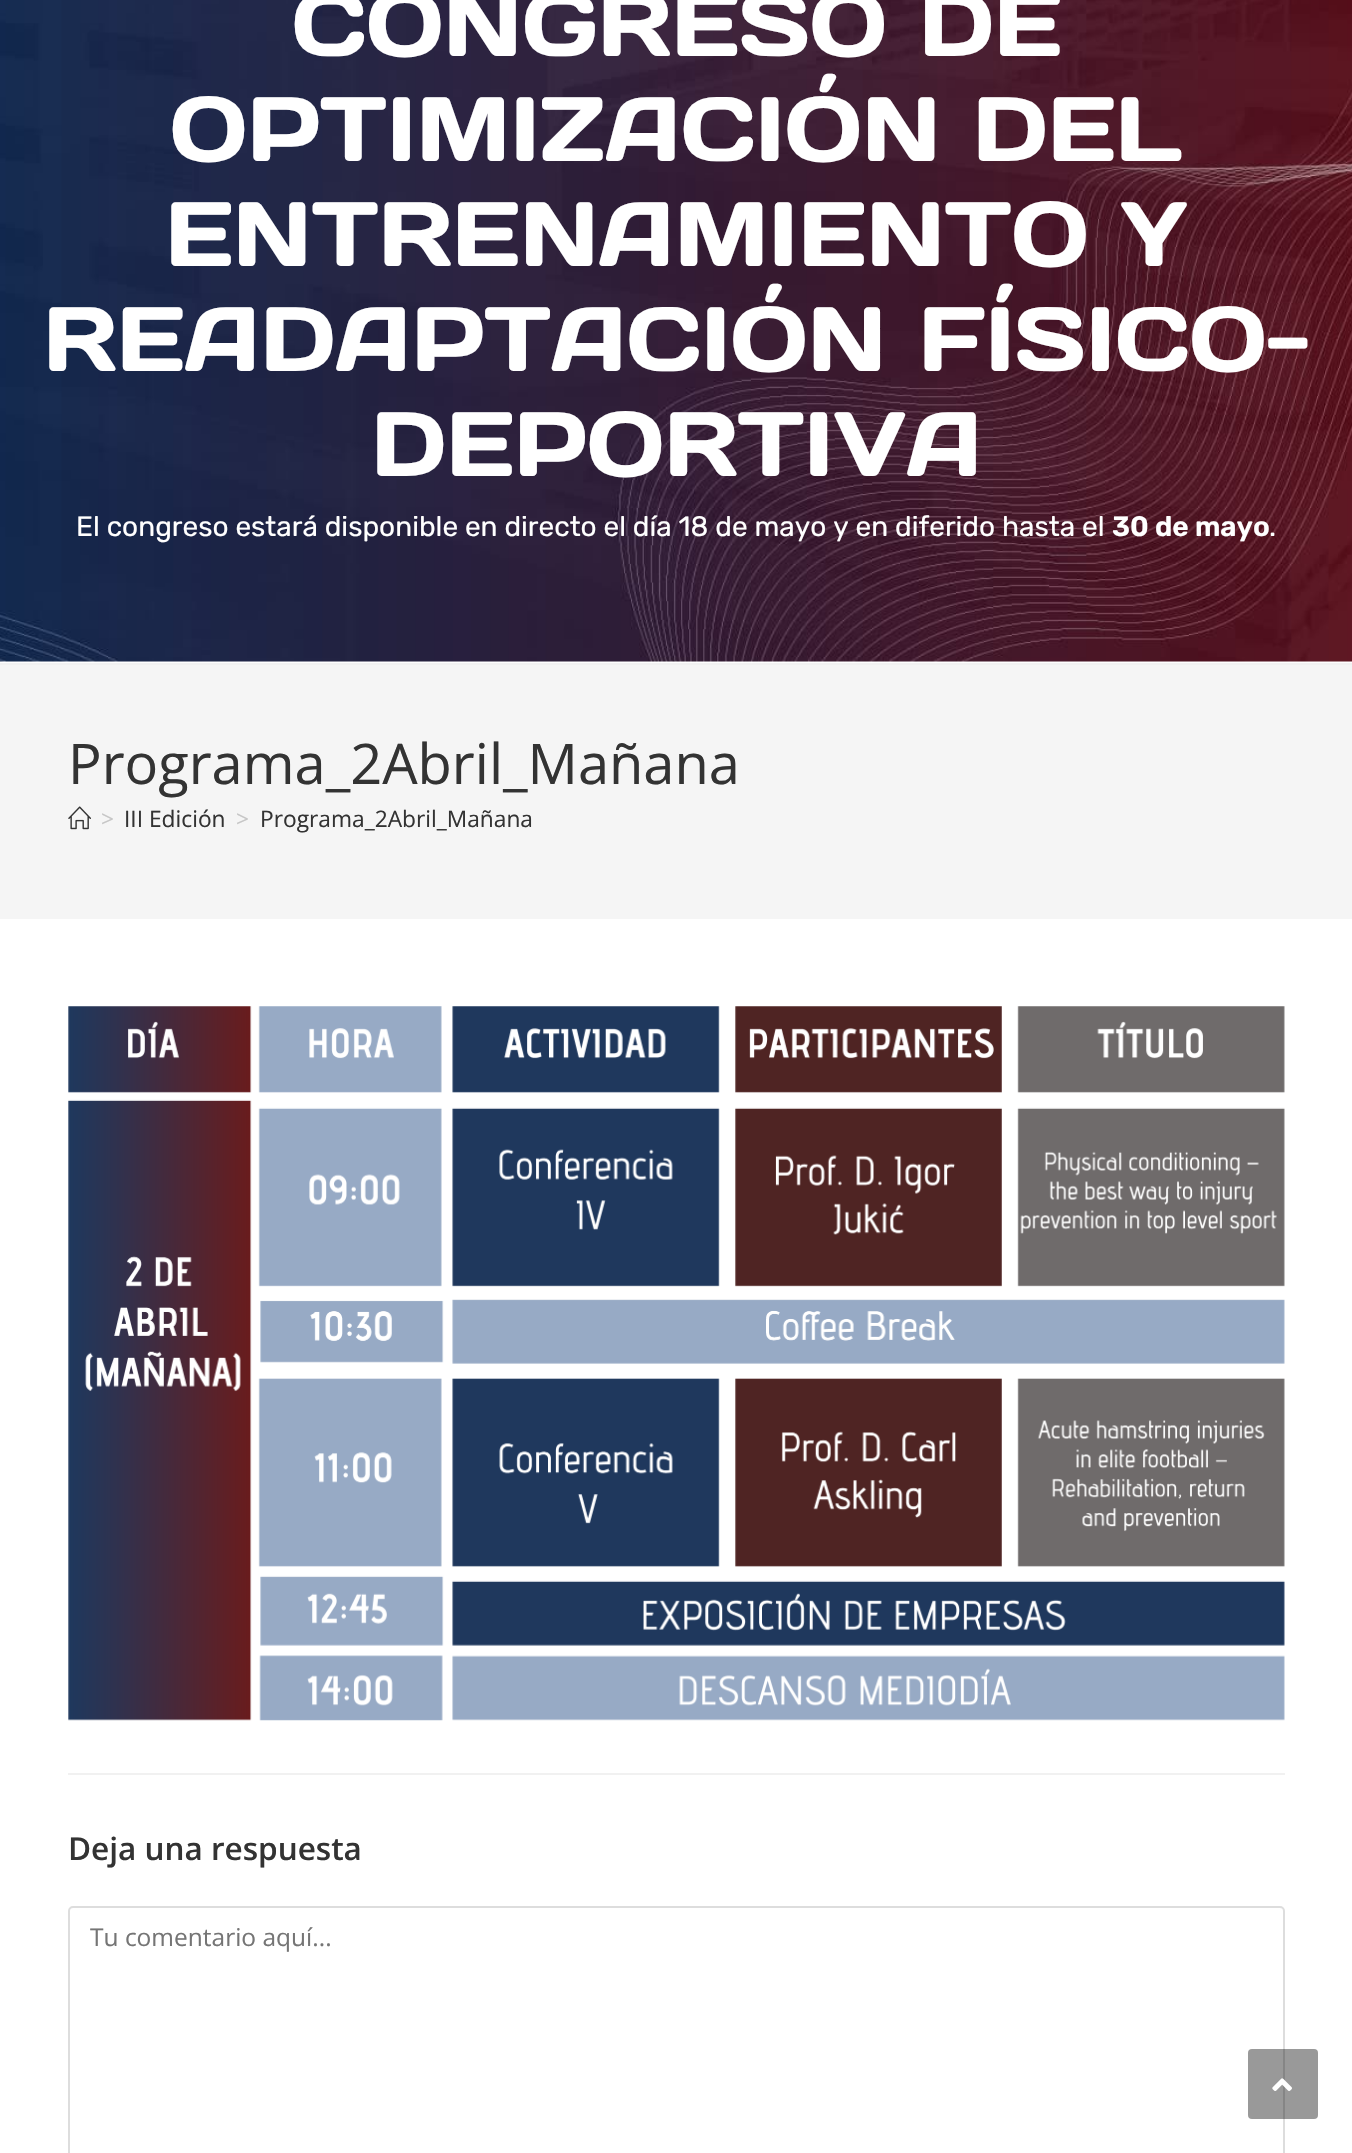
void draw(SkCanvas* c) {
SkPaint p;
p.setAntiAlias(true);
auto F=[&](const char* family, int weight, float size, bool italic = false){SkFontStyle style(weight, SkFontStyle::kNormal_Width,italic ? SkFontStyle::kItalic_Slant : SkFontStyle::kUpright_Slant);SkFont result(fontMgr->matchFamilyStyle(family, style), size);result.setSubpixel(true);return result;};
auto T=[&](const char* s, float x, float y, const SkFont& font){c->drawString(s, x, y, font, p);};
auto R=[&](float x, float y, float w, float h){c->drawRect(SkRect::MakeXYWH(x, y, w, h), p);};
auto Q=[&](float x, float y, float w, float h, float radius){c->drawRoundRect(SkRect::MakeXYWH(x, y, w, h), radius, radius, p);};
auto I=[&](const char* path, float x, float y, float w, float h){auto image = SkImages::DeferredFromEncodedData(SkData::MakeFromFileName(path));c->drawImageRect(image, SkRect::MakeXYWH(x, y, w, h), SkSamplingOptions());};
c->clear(0xffffffff);
p.setColor(0xfff1f1f1);
R(0,663,1352,2);
I("1.png",0,0,1352,662);
auto f1 = F("Days One",400,91);
p.setColor(0xffffffff);
T("CONGRESO DE",292,56,f1);
T("OPTIMIZACIÓN DEL",170,161,f1);
T("ENTRENAMIENTO Y",165,266,f1);
T("READAPTACIÓN FÍSICO-",43,371,f1);
T("DEPORTIVA",371,476,f1);
auto f2 = F("Rubik",400,28);
T("El congreso estará disponible en directo el día 18 de mayo y en diferido hasta el",76,536,f2);
auto f3 = F("Rubik",600,28);
T("30 de mayo",1112,536,f3);
T(".",1269,536,f2);
p.setColor(0xfff5f5f5);
R(0,665,1352,254);
auto f4 = F("Open Sans",400,56);
p.setColor(0xff333333);
T("Programa_2Abril_Mañana",68,784,f4);
I("2.png",68,806,23,24);
auto f5 = F("Open Sans",400,22.75);
p.setColor(0xffc6c6c6);
T(">",101,827,f5);
p.setColor(0xff333333);
T("III Edición",124,827,f5);
p.setColor(0xffc6c6c6);
T(">",236,827,f5);
p.setColor(0xff333333);
T("Programa_2Abril_Mañana",260,827,f5);
I("3.png",68,1006,1217,715);
p.setColor(0xfff1f1f1);
R(68,1773,1217,2);
auto f6 = F("Open Sans",600,31.5);
p.setColor(0xff333333);
T("Deja una respuesta",68,1860,f6);
p.setStroke(true);
p.setStrokeWidth(2);
p.setColor(0xffdddddd);
c->drawRoundRect(SkRect::MakeXYWH(69,1907,1215,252),4,4,p);
auto f7 = F("Open Sans",400,24.5);
p.setStroke(false);
p.setColor(0xff757575);
T("Tu comentario aquí...",90,1946,f7);
p.setColor(0x66000000);
Q(1248,2049,70,70,4);
I("4.png",1272,2078,20,13);
}
